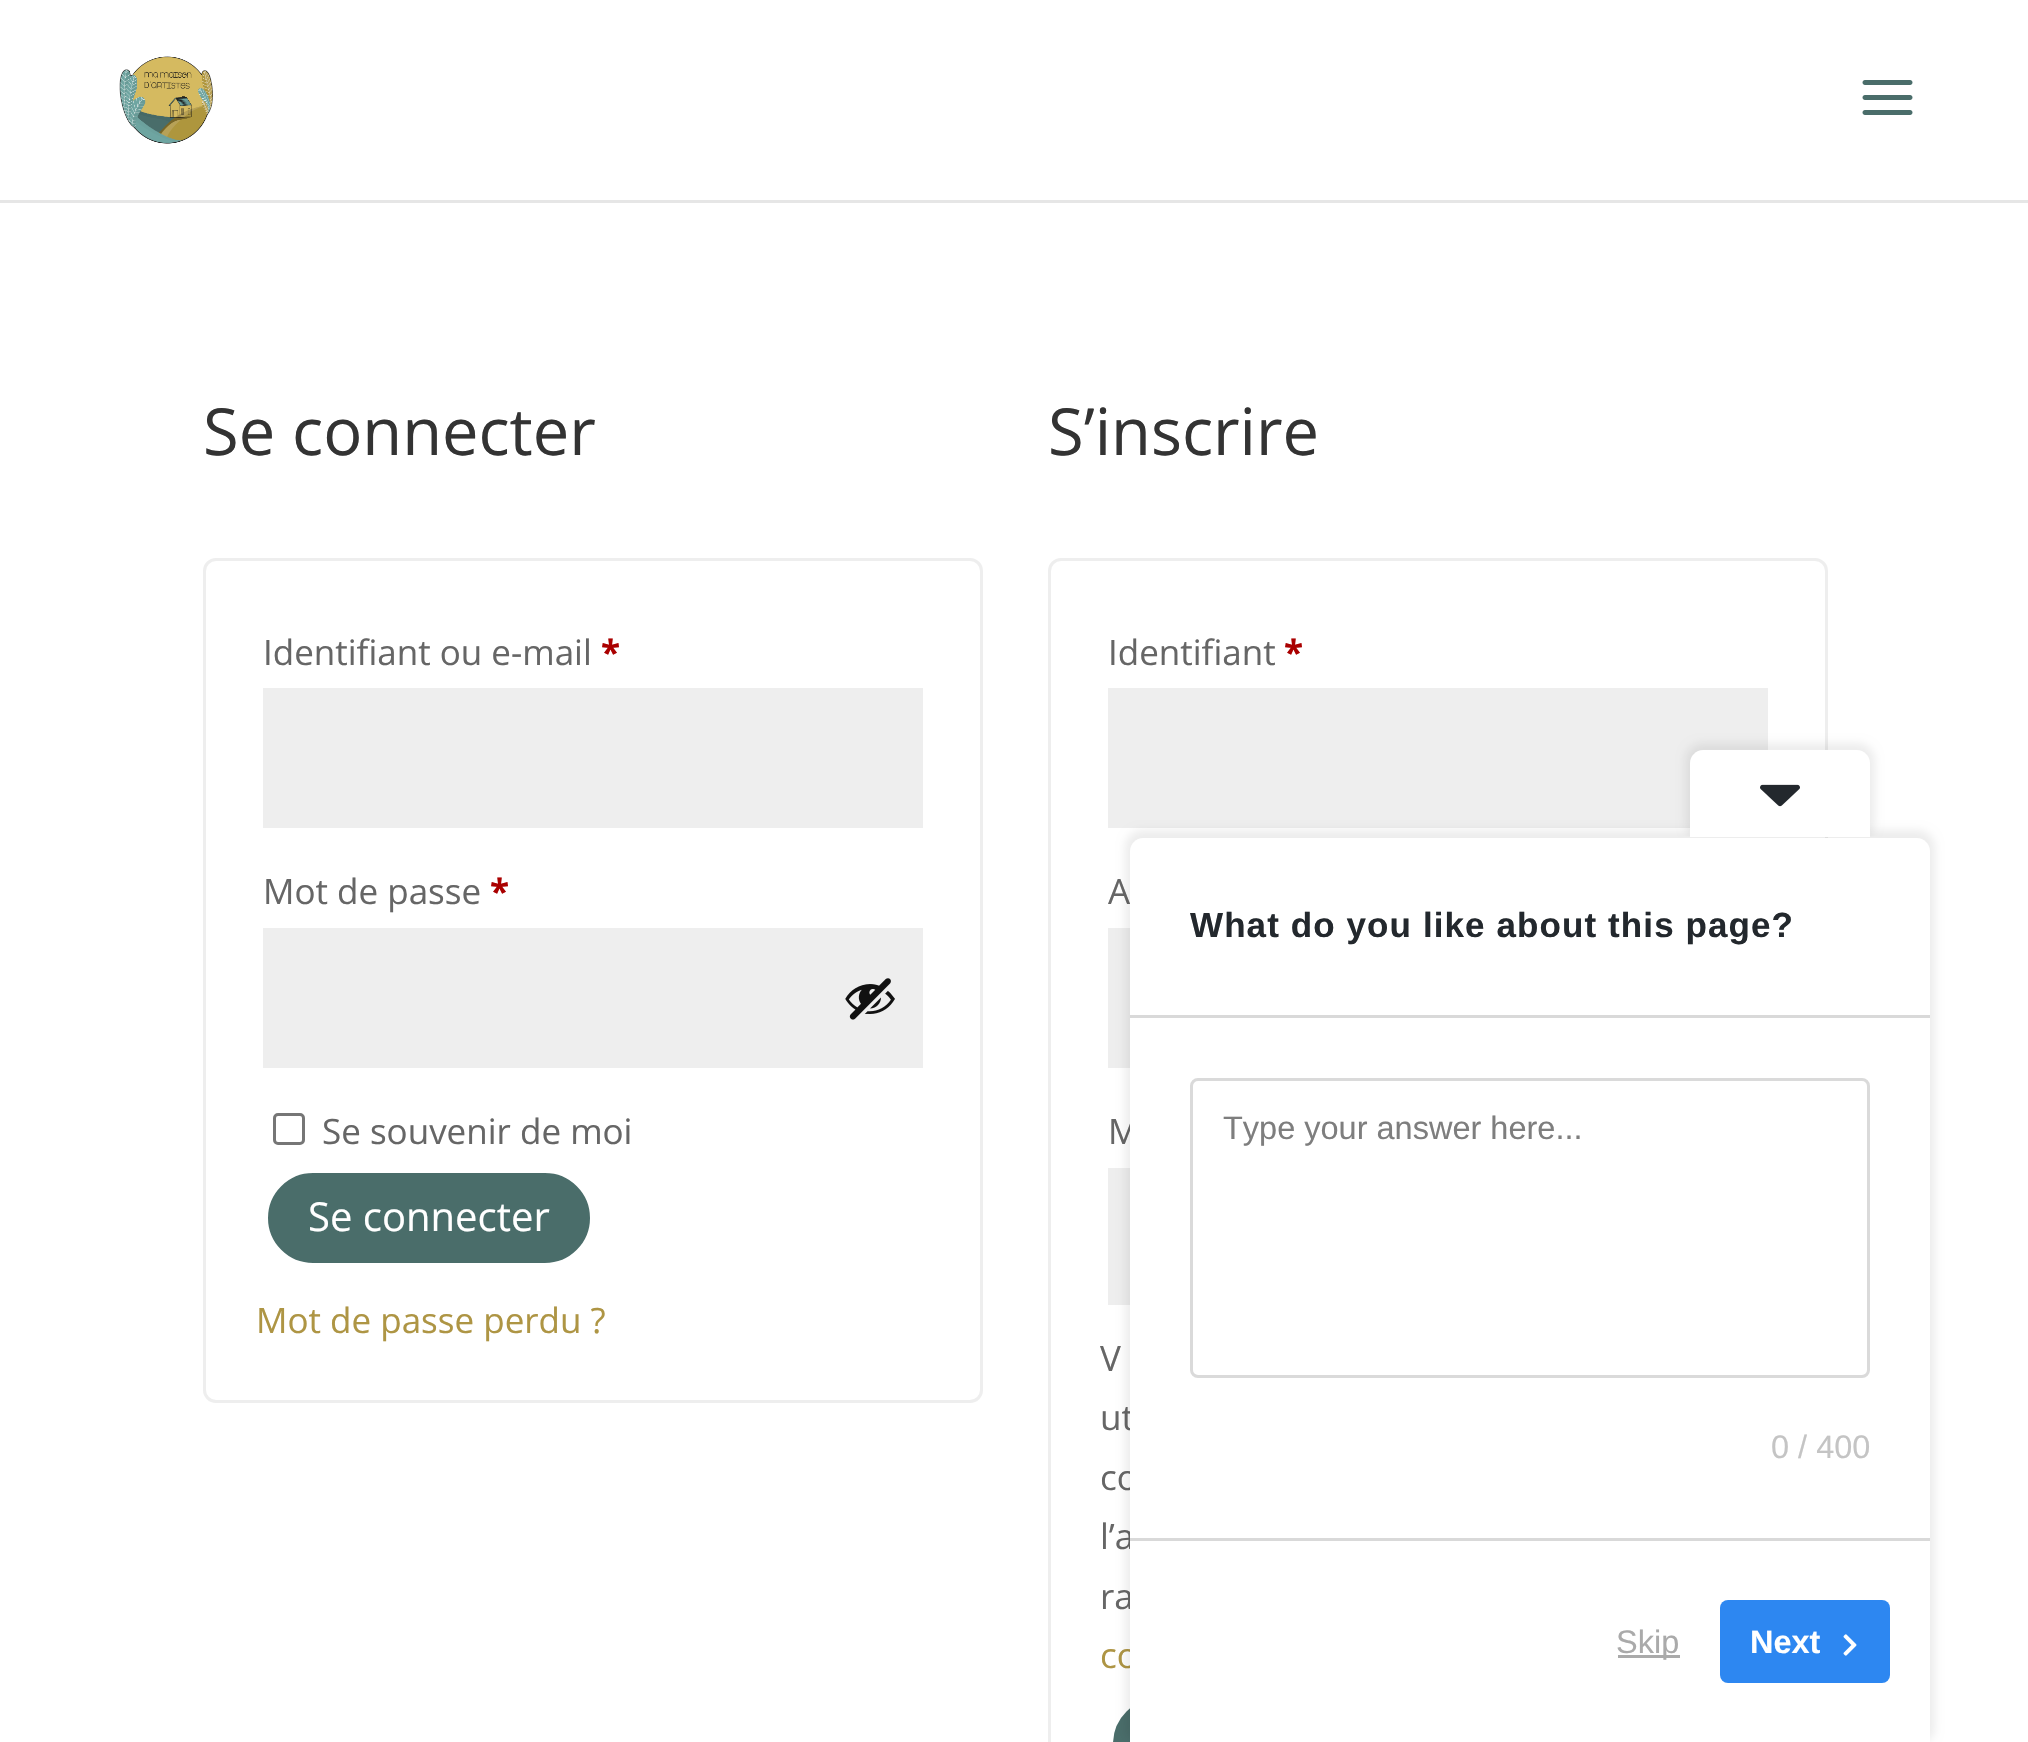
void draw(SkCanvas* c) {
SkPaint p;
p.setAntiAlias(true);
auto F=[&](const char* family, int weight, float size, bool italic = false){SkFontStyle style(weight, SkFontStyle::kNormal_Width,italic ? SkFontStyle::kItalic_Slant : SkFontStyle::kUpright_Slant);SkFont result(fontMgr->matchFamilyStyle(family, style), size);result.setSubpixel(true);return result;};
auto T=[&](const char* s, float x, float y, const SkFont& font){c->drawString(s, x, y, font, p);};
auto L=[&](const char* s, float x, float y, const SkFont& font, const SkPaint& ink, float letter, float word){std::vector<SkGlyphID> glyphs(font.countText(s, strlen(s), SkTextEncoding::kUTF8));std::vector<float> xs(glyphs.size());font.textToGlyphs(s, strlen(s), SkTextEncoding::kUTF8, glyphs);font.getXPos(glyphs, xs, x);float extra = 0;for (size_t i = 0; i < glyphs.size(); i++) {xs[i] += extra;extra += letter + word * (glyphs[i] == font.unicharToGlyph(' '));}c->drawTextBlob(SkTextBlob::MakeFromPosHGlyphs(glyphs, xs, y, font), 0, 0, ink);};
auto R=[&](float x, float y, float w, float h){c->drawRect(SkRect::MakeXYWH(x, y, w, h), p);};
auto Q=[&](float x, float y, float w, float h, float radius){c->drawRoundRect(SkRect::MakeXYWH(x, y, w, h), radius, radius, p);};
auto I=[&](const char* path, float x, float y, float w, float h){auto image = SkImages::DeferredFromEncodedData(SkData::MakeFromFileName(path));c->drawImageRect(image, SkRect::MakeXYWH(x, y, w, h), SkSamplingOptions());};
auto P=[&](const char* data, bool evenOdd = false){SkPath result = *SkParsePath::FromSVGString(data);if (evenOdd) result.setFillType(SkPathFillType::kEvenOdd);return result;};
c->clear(0xffffffff);
p.setColor(0xffe6e6e6);
R(0,200,2028,3);
I("1.png",119,56,94,88);
I("2.png",1862,80,51,35);
auto f1 = F("Open Sans",400,65);
p.setColor(0xff333333);
T("Se connecter",203,455,f1);
p.setStroke(true);
p.setStrokeWidth(3);
p.setColor(0xffeeeeee);
c->drawRoundRect(SkRect::MakeXYWH(204.5,559.5,777,842),11.5,11.5,p);
auto f2 = F("Open Sans",400,35);
p.setStroke(false);
p.setColor(0xff666666);
T("Identifiant ou e-mail",263,665,f2);
auto f3 = F("Open Sans",700,35);
p.setColor(0xffaa0000);
T("*",601,665,f3);
p.setColor(0xffeeeeee);
R(263,688,660,140);
p.setColor(0xff666666);
T("Mot de passe",263,904,f2);
p.setColor(0xffaa0000);
T("*",490,904,f3);
p.setColor(0xffeeeeee);
R(263,928,660,140);
I("3.png",845,978,50,42);
p.setStroke(true);
p.setColor(0xff767676);
c->drawRoundRect(SkRect::MakeXYWH(274.5,1114.5,29,29),3.5,3.5,p);
p.setStroke(false);
p.setColor(0xff666666);
T("Se souvenir de moi",322,1144,f2);
p.setColor(0xff4a6d6a);
c->drawRoundRect(SkRect::MakeXYWH(265.5,1170.5,327,95),47.5,47.5,p);
p.setStroke(true);
p.setStrokeWidth(5);
p.setColor(0xffffffff);
c->drawRoundRect(SkRect::MakeXYWH(265.5,1170.5,327,95),47.5,47.5,p);
auto f4 = F("Open Sans",400,40);
p.setStroke(false);
T("Se connecter",308,1231,f4);
p.setColor(0xffae9544);
T("Mot de passe perdu ?",256,1333,f2);
p.setColor(0xff333333);
T("S’inscrire",1048,455,f1);
p.setStroke(true);
p.setStrokeWidth(3);
p.setColor(0xffeeeeee);
c->drawRoundRect(SkRect::MakeXYWH(1049.5,559.5,777,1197),11.5,11.5,p);
p.setStroke(false);
p.setColor(0xff666666);
T("Identifiant",1108,665,f2);
p.setColor(0xffaa0000);
T("*",1284,665,f3);
p.setColor(0xffeeeeee);
R(1108,688,660,140);
p.setColor(0xff666666);
T("A",1108,904,f2);
p.setColor(0xffeeeeee);
R(1108,928,22,140);
p.setColor(0xff666666);
T("M",1108,1144,f2);
p.setColor(0xffeeeeee);
R(1108,1168,22,137);
p.setColor(0xff666666);
T("V",1100,1371,f2);
T("ut",1100,1430,f2);
T("co",1100,1490,f2);
T("l’a",1100,1549,f2);
T("ra",1100,1609,f2);
p.setColor(0xffae9544);
T("co",1100,1668,f2);
p.setColor(0xff4a6d6a);
c->drawRoundRect(SkRect::MakeXYWH(1110.5,1695.5,252,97),48.5,48.5,p);
p.setStroke(true);
p.setStrokeWidth(5);
p.setColor(0xffffffff);
c->drawRoundRect(SkRect::MakeXYWH(1110.5,1695.5,252,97),48.5,48.5,p);
p.setStroke(false);
p.setColor(0x12000000);
p.setMaskFilter(SkMaskFilter::MakeBlur(kNormal_SkBlurStyle, 4));
c->drawRoundRect(SkRect::MakeXYWH(1125,830,810,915),18,18,p);
p.setMaskFilter(nullptr);
p.setColor(0xffffffff);
c->drawPath(P("M1143 838h774c7 0 13 6 13 13v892h-800v-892c0-7 6-13 13-13z"),p);
c->save();
c->clipPath(P("M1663 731.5h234l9 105h-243z"),true);
p.setColor(0x12000000);
p.setMaskFilter(SkMaskFilter::MakeBlur(kNormal_SkBlurStyle, 4));
c->drawRoundRect(SkRect::MakeXYWH(1685,743,190,97),18,18,p);
p.setMaskFilter(nullptr);
c->restore();
p.setColor(0xffffffff);
c->drawPath(P("M1703 750h154c7 0 13 6 13 13v74h-180v-74c0-7 6-13 13-13z"),p);
I("4.png",1760,784,40,23);
auto f5 = F("Liberation Sans",700,35);
p.setColor(0xff23282d);
L("What do you like about this page?",1190,937,f5,p,1.1,0);
p.setColor(0xffd9d9d9);
R(1130,1015,800,3);
R(1130,1538,800,3);
p.setStroke(true);
p.setStrokeWidth(3);
p.setColor(0xffdadada);
c->drawRoundRect(SkRect::MakeXYWH(1191.5,1079.5,677,297),6.5,6.5,p);
auto f6 = F("Liberation Sans",400,32.5);
p.setStroke(false);
p.setColor(0xff7e7e7e);
T("Type your answer here...",1223,1139,f6);
p.setColor(0xffc4c4c4);
T("0 / 400",1771,1458,f6);
p.setColor(0xffaaaaaa);
R(1618,1655,62,3);
T("Skip",1616,1653,f6);
p.setColor(0xff2d87f1);
Q(1720,1600,170,83,8);
auto f7 = F("Liberation Sans",700,32.5);
p.setColor(0xffffffff);
T("Next",1750,1653,f7);
I("5.png",1843,1634,14,22);
}
